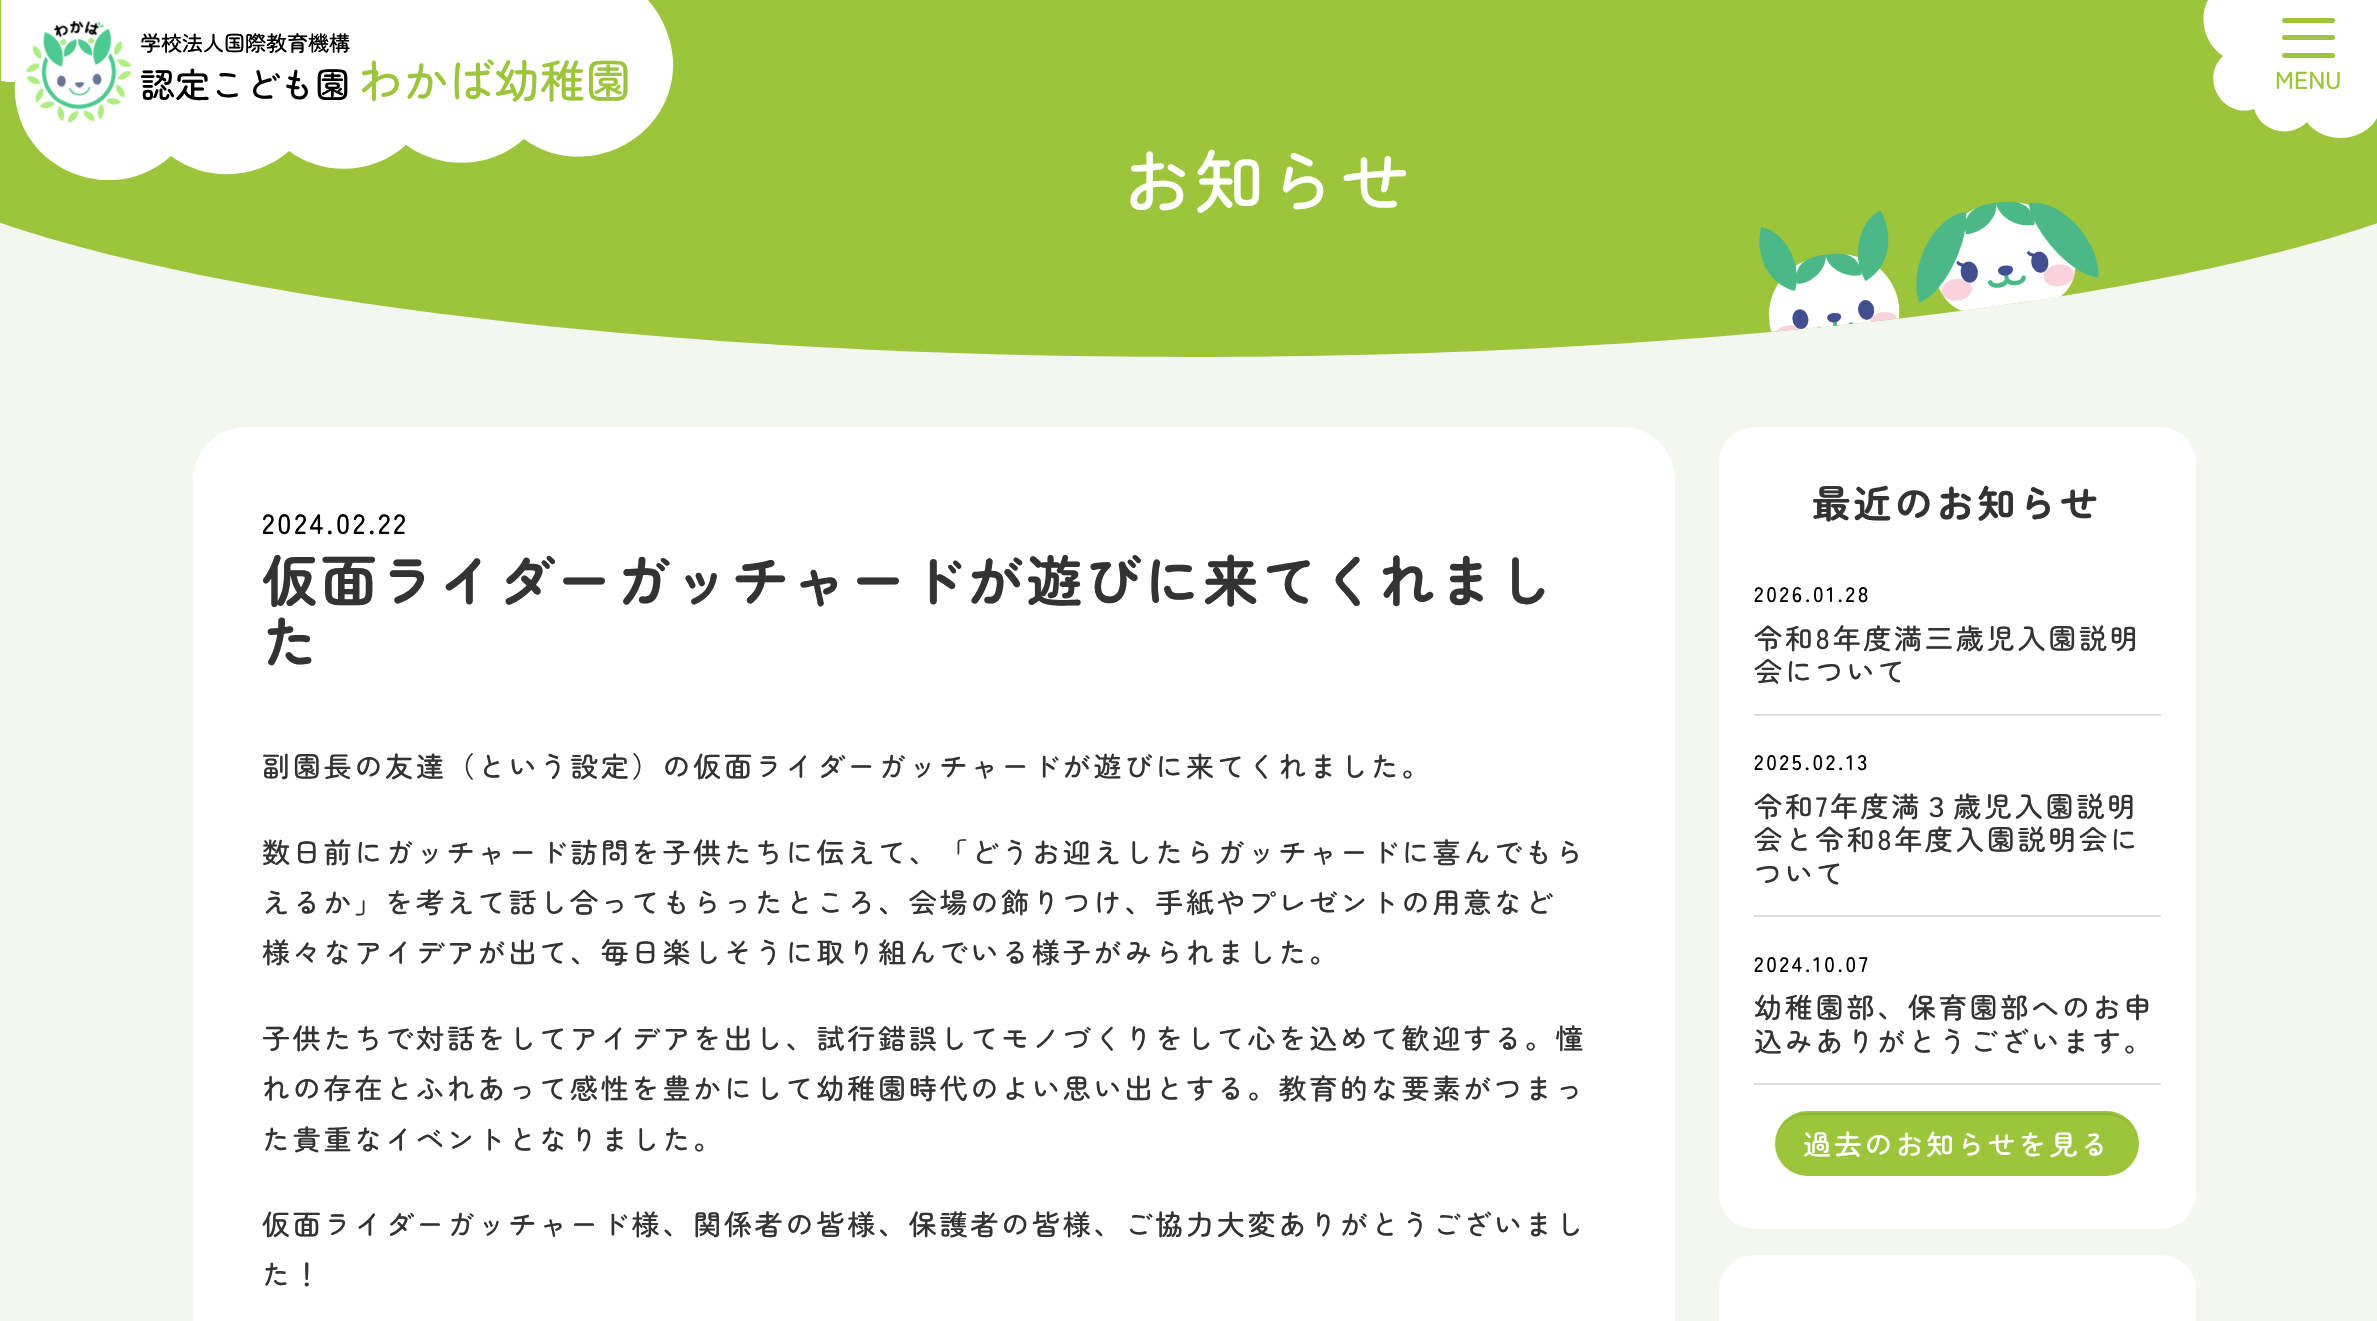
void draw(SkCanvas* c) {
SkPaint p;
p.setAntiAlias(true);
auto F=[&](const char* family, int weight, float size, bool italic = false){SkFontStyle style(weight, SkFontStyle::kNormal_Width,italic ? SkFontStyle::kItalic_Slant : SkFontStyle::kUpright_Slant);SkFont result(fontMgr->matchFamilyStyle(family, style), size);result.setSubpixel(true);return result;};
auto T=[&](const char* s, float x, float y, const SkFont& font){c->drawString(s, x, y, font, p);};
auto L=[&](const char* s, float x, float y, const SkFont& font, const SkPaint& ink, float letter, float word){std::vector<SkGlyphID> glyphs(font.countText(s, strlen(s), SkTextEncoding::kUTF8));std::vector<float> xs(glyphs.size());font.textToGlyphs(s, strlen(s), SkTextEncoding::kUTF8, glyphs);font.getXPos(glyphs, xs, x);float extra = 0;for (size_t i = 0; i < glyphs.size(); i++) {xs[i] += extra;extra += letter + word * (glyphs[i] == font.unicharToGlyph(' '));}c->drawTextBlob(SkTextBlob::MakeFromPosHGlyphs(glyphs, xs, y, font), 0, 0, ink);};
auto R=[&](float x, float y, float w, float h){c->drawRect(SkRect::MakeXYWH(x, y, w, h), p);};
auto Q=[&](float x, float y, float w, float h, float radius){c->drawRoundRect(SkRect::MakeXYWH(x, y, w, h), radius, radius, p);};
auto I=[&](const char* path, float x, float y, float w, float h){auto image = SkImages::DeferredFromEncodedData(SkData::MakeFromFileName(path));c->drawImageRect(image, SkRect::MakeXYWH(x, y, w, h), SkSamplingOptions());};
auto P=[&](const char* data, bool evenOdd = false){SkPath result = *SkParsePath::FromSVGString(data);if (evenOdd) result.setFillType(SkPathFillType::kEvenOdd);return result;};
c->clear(0xfff4f7f0);
p.setColor(0xff9cc53c);
c->drawPath(P("M-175 0h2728v94c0 145-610 263-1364 263c-753 0-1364-118-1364-263z"),p);
c->save();
c->clipRect(SkRect::MakeXYWH(0,0,674,180));
p.setColor(0xffffffff);
c->drawPath(P("M673 59c-2-23-11-43-25-59h-647v81c5 1 10 1 14 1c-5 84 95 129 156 74c35 26 85 24 118-5c35 26 85 23 117-6c36 26 86 23 118-6c62 45 153-1 149-80z"),p);
c->restore();
auto f1 = F("Zen Maru Gothic",500,21);
p.setColor(0xff000000);
T("学校法人国際教育機構",140,51,f1);
I("1.png",26,21,106,102);
auto f2 = F("Zen Maru Gothic",500,35);
T("認定こども園",140,98,f2);
auto f3 = F("Zen Maru Gothic",500,45.5);
p.setColor(0xff9cc53c);
T("わかば幼稚園",358,98,f3);
p.setColor(0xffffffff);
c->drawPath(P("M2208 0c-10 19-3 44 15 56c-24 23 0 63 31 53c7 23 36 30 53 13l3 4c17 16 44 16 61 0c3-3 5-6 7-10v-116z"),p);
p.setColor(0xff9cc53c);
Q(2282,18,53,5,2.5);
Q(2282,35,53,5,2.5);
Q(2282,53,53,5,2.5);
auto f4 = F("Zen Maru Gothic",500,24.5);
T("MENU",2275,89,f4);
auto f5 = F("Zen Maru Gothic",500,70);
p.setColor(0xffffffff);
L("お知らせ",1122,208,f5,p,2.8,0);
I("2.png",1759,201,340,131);
Q(193,427,1482,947,53);
auto f6 = F("Zen Maru Gothic",500,28);
p.setColor(0xff000000);
L("2024.02.22",262,534,f6,p,2.8,0);
auto f7 = F("Zen Maru Gothic",700,56);
p.setColor(0xff333333);
L("仮面ライダーガッチャードが遊びに来てくれまし",262,602,f7,p,2.8,0);
L("た",262,663,f7,p,2.8,0);
L("副園長の友達（という設定）の仮面ライダーガッチャードが遊びに来てくれました。",262,777,f6,p,2.8,0);
L("数日前にガッチャード訪問を子供たちに伝えて、「どうお迎えしたらガッチャードに喜んでもら",262,863,f6,p,2.8,0);
L("えるか」を考えて話し合ってもらったところ、会場の飾りつけ、手紙やプレゼントの用意など",262,913,f6,p,2.8,0);
L("様々なアイデアが出て、毎日楽しそうに取り組んでいる様子がみられました。",262,963,f6,p,2.8,0);
L("子供たちで対話をしてアイデアを出し、試行錯誤してモノづくりをして心を込めて歓迎する。憧",262,1049,f6,p,2.8,0);
L("れの存在とふれあって感性を豊かにして幼稚園時代のよい思い出とする。教育的な要素がつまっ",262,1099,f6,p,2.8,0);
L("た貴重なイベントとなりました。",262,1150,f6,p,2.8,0);
L("仮面ライダーガッチャード様、関係者の皆様、保護者の皆様、ご協力大変ありがとうございまし",262,1235,f6,p,2.8,0);
L("た！",262,1285,f6,p,2.8,0);
p.setColor(0xffffffff);
Q(1719,427,477,802,35);
auto f8 = F("Zen Maru Gothic",700,38.5);
p.setColor(0xff333333);
L("最近のお知らせ",1812,518,f8,p,2.8,0);
p.setColor(0xffdddddd);
R(1754,714,407,2);
p.setColor(0xff000000);
L("2026.01.28",1754,602,f1,p,2.8,0);
p.setColor(0xff333333);
L("令和8年度満三歳児入園説明",1754,649,f6,p,2.8,0);
L("会について",1754,682,f6,p,2.8,0);
p.setColor(0xffdddddd);
R(1754,915,407,2);
p.setColor(0xff000000);
L("2025.02.13",1754,770,f1,p,2.8,0);
p.setColor(0xff333333);
L("令和7年度満３歳児入園説明",1754,817,f6,p,2.8,0);
L("会と令和8年度入園説明会に",1754,850,f6,p,2.8,0);
L("ついて",1754,884,f6,p,2.8,0);
p.setColor(0xffdddddd);
R(1754,1083,407,2);
p.setColor(0xff000000);
L("2024.10.07",1754,972,f1,p,2.8,0);
p.setColor(0xff333333);
L("幼稚園部、保育園部へのお申",1754,1018,f6,p,2.8,0);
L("込みありがとうございます。",1754,1052,f6,p,2.8,0);
p.setColor(0xff9cc53c);
Q(1775,1111,364,65,32.5);
p.setColor(0xff90b638);
c->drawPath(P("M1807 1115h299c17 0 31 13 31 29c0-17-14-31-31-31h-300c-16 0-30 14-30 31c0-16 14-29 31-29z"),p);
p.setColor(0xffffffff);
L("過去のお知らせを見る",1803,1155,f6,p,2.8,0);
Q(1719,1255,477,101,35);
}
